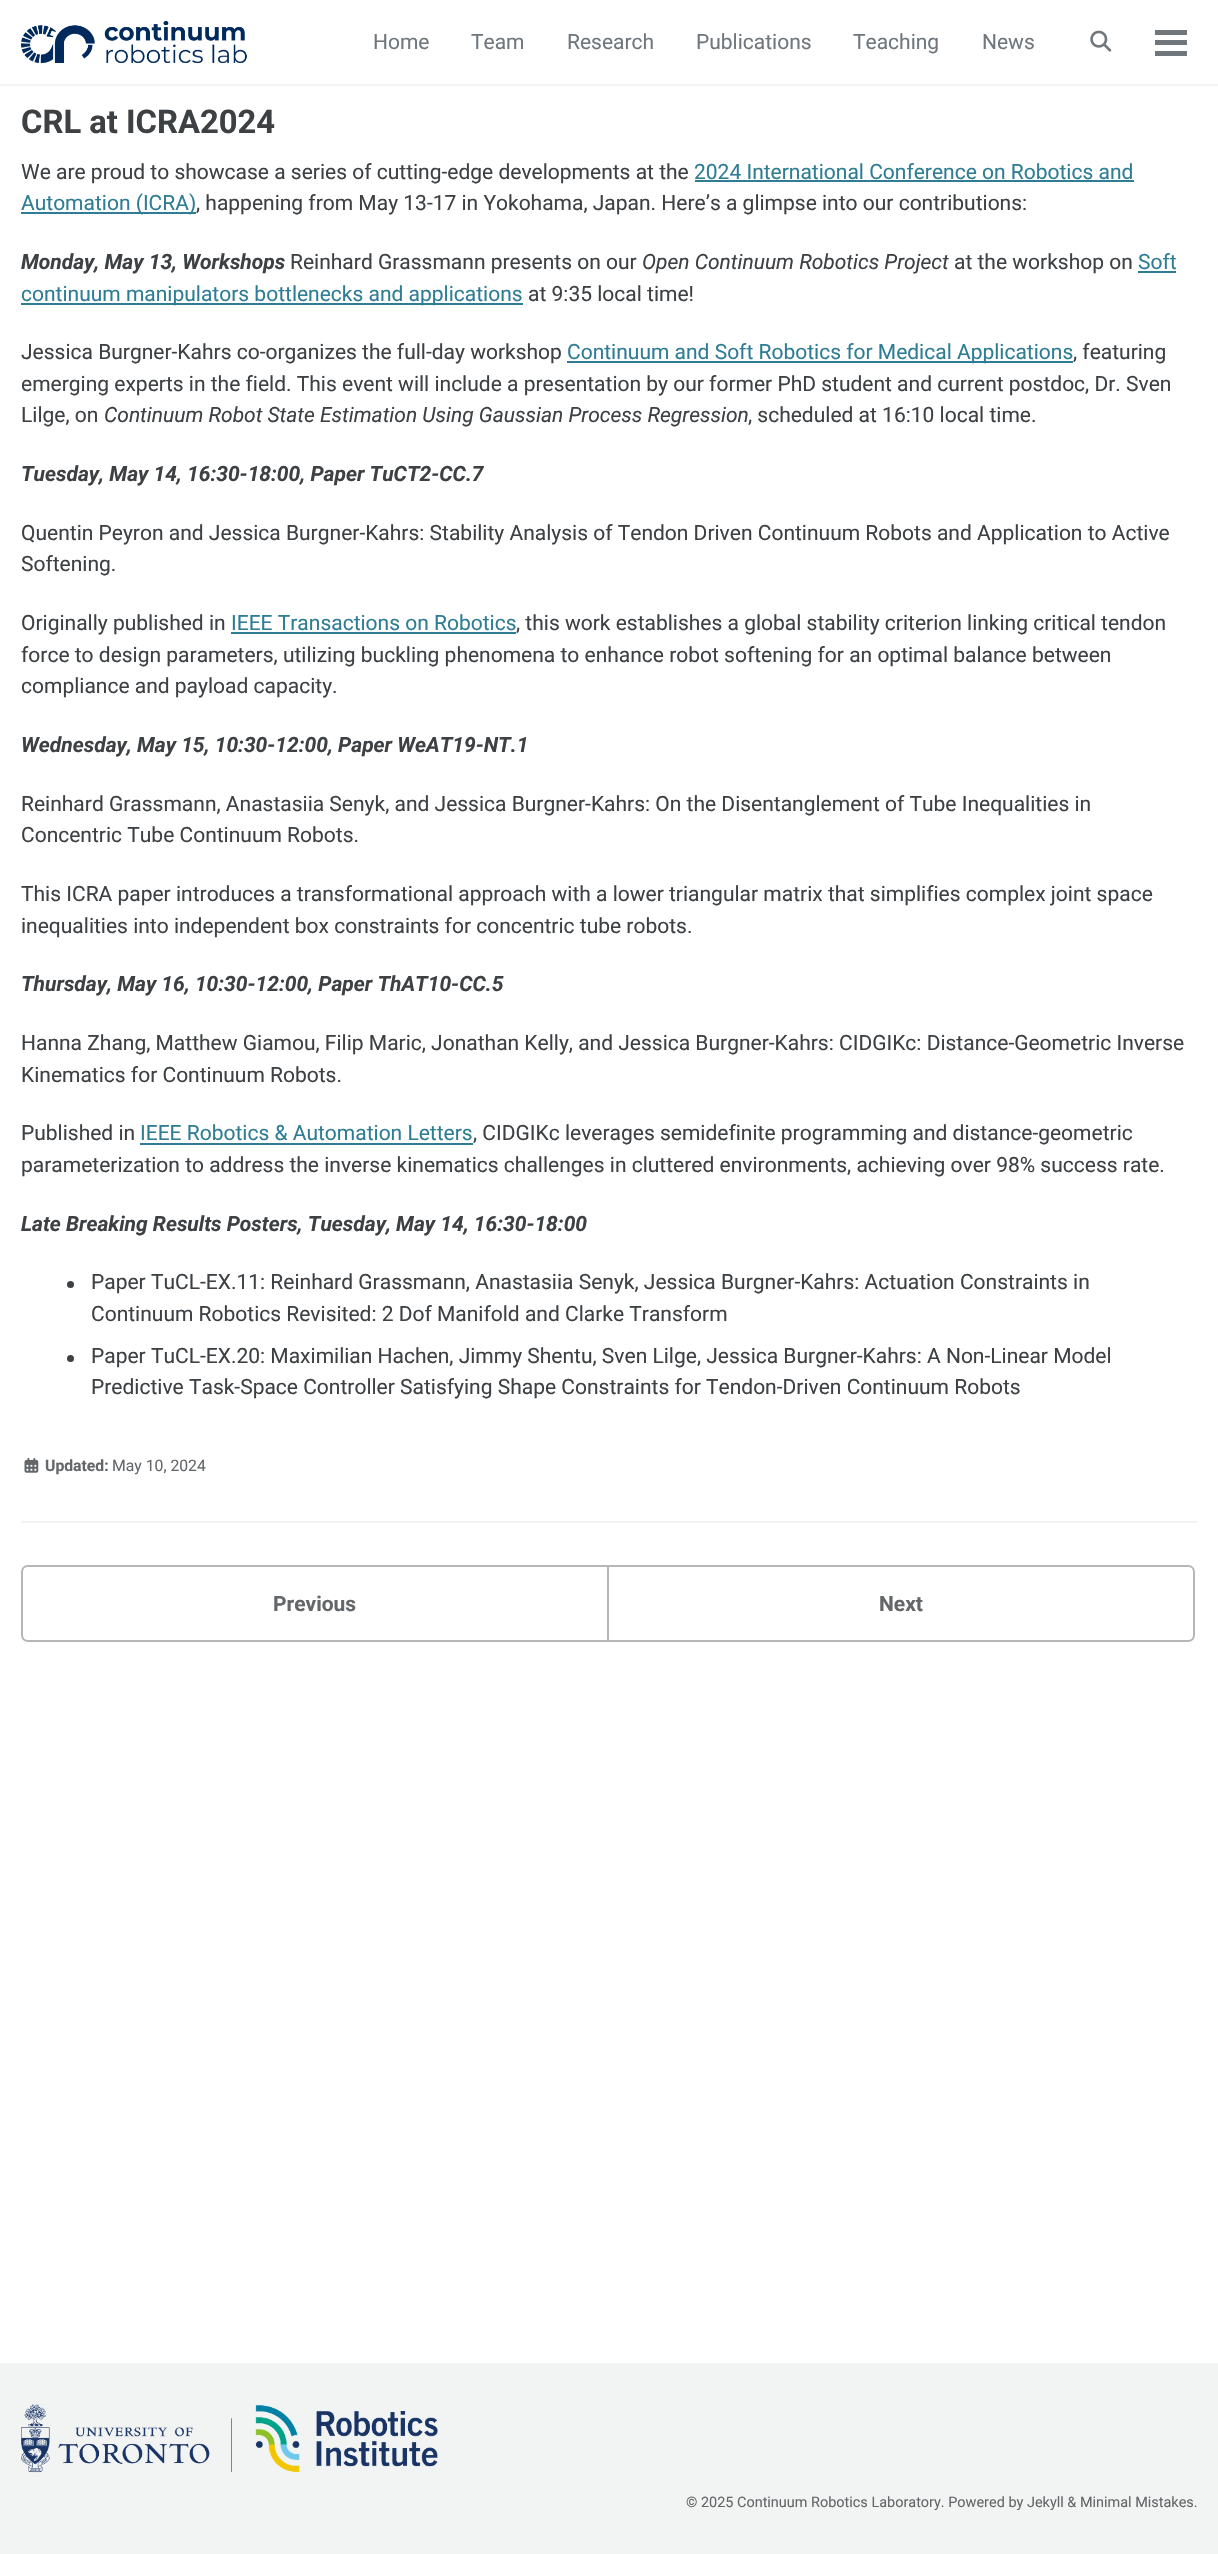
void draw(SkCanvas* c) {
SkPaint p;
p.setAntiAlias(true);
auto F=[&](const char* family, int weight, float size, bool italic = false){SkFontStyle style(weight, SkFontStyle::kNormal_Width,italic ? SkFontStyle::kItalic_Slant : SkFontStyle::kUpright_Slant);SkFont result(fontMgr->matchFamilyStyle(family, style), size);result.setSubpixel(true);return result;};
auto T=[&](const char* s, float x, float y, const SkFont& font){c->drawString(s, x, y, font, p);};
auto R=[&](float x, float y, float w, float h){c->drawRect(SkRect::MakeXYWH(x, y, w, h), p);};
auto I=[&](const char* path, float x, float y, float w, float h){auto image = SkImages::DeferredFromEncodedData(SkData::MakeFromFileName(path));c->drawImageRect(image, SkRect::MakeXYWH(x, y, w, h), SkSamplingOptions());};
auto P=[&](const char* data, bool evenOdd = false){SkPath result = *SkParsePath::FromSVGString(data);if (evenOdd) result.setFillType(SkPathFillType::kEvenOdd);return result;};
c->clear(0xffffffff);
p.setColor(0xfff2f3f3);
R(0,84,1218,2);
I("1.png",21,21,226,42);
auto f1 = F("Roboto",400,21);
p.setColor(0xff6f777d);
T("Home",373,49,f1);
T("Team",471,49,f1);
T("Research",567,49,f1);
T("Publications",696,49,f1);
T("Teaching",853,49,f1);
T("News",982,49,f1);
I("2.png",1090,30,22,22);
R(1155,40,32,5);
R(1155,30,32,5);
R(1155,51,32,5);
auto f2 = F("Roboto",700,32.75);
p.setColor(0xff3d4144);
T("CRL at ICRA2024",21,133,f2);
T("We are proud to showcase a series of cutting-edge developments at the",21,179,f1);
p.setColor(0xff2f7d95);
T("2024 International Conference on Robotics and",694,179,f1);
R(695,180,439,2);
R(21,212,175,2);
T("Automation (ICRA)",21,210,f1);
p.setColor(0xff3d4144);
T(", happening from May 13-17 in Yokohama, Japan. Here’s a glimpse into our contributions:",196,210,f1);
auto f3 = F("Roboto",700,21,true);
T("Monday, May 13, Workshops",21,269,f3);
T("Reinhard Grassmann presents on our",290,269,f1);
auto f4 = F("Roboto",400,21,true);
T("Open Continuum Robotics Project",642,269,f4);
T("at the workshop on",954,269,f1);
p.setColor(0xff2f7d95);
T("Soft",1138,269,f1);
R(1138,271,38,2);
R(21,303,502,2);
T("continuum manipulators bottlenecks and applications",21,301,f1);
p.setColor(0xff3d4144);
T("at 9:35 local time!",528,301,f1);
T("Jessica Burgner-Kahrs co-organizes the full-day workshop",21,359,f1);
p.setColor(0xff2f7d95);
R(567,361,506,2);
T("Continuum and Soft Robotics for Medical Applications",567,359,f1);
p.setColor(0xff3d4144);
T(", featuring",1073,359,f1);
T("emerging experts in the field. This event will include a presentation by our former PhD student and current postdoc, Dr. Sven",21,391,f1);
T("Lilge, on",21,422,f1);
T("Continuum Robot State Estimation Using Gaussian Process Regression",104,422,f4);
T(", scheduled at 16:10 local time.",748,422,f1);
T("Tuesday, May 14, 16:30-18:00, Paper TuCT2-CC.7",21,481,f3);
T("Quentin Peyron and Jessica Burgner-Kahrs: Stability Analysis of Tendon Driven Continuum Robots and Application to Active",21,540,f1);
T("Softening.",21,571,f1);
T("Originally published in",21,630,f1);
p.setColor(0xff2f7d95);
T("IEEE Transactions on Robotics",231,630,f1);
R(231,632,285,2);
p.setColor(0xff3d4144);
T(", this work establishes a global stability criterion linking critical tendon",516,630,f1);
T("force to design parameters, utilizing buckling phenomena to enhance robot softening for an optimal balance between",21,662,f1);
T("compliance and payload capacity.",21,693,f1);
T("Wednesday, May 15, 10:30-12:00, Paper WeAT19-NT.1",21,752,f3);
T("Reinhard Grassmann, Anastasiia Senyk, and Jessica Burgner-Kahrs: On the Disentanglement of Tube Inequalities in",21,811,f1);
T("Concentric Tube Continuum Robots.",21,842,f1);
T("This ICRA paper introduces a transformational approach with a lower triangular matrix that simplifies complex joint space",21,901,f1);
T("inequalities into independent box constraints for concentric tube robots.",21,933,f1);
T("Thursday, May 16, 10:30-12:00, Paper ThAT10-CC.5",21,991,f3);
T("Hanna Zhang, Matthew Giamou, Filip Maric, Jonathan Kelly, and Jessica Burgner-Kahrs: CIDGIKc: Distance-Geometric Inverse",21,1050,f1);
T("Kinematics for Continuum Robots.",21,1082,f1);
T("Published in",21,1140,f1);
p.setColor(0xff2f7d95);
T("IEEE Robotics & Automation Letters",140,1140,f1);
R(140,1143,333,2);
p.setColor(0xff3d4144);
T(", CIDGIKc leverages semidefinite programming and distance-geometric",473,1140,f1);
T("parameterization to address the inverse kinematics challenges in cluttered environments, achieving over 98% success rate.",21,1172,f1);
T("Late Breaking Results Posters, Tuesday, May 14, 16:30-18:00",21,1231,f3);
c->drawCircle(70.5,1284.5,3.5,p);
T("Paper TuCL-EX.11: Reinhard Grassmann, Anastasiia Senyk, Jessica Burgner-Kahrs: Actuation Constraints in",91,1289,f1);
T("Continuum Robotics Revisited: 2 Dof Manifold and Clarke Transform",91,1321,f1);
c->drawCircle(70.5,1358.5,3.5,p);
T("Paper TuCL-EX.20: Maximilian Hachen, Jimmy Shentu, Sven Lilge, Jessica Burgner-Kahrs: A Non-Linear Model",91,1363,f1);
T("Predictive Task-Space Controller Satisfying Shape Constraints for Tendon-Driven Continuum Robots",91,1394,f1);
I("3.png",24,1458,15,15);
auto f5 = F("Roboto",700,15.75);
p.setColor(0xff646769);
T("Updated:",45,1471,f5);
auto f6 = F("Roboto",400,15.75);
T("May 10, 2024",112,1471,f6);
p.setColor(0xfff2f3f3);
R(21,1521,1176,2);
p.setStroke(true);
p.setStrokeWidth(2);
p.setColor(0xffb5b6b6);
c->drawPath(P("M28 1566h580v75h-580c-3.5 0-6-2.5-6-6v-63c0-3.5 2.5-6 6-6z"),p);
auto f7 = F("Roboto",700,21);
p.setStroke(false);
p.setColor(0xff646769);
T("Previous",273,1611,f7);
p.setStroke(true);
p.setColor(0xffb5b6b6);
c->drawPath(P("M608 1566h580c3.5 0 6 2.5 6 6v63c0 3.5-2.5 6-6 6h-580z"),p);
p.setStroke(false);
p.setColor(0xff646769);
T("Next",879,1611,f7);
p.setColor(0xfff2f3f3);
R(0,2363,1218,191);
I("4.png",21,2404,417,69);
auto f8 = F("Roboto",400,14.45);
p.setColor(0xff646769);
T("© 2025 Continuum Robotics Laboratory. Powered by Jekyll & Minimal Mistakes.",686,2507,f8);
}
